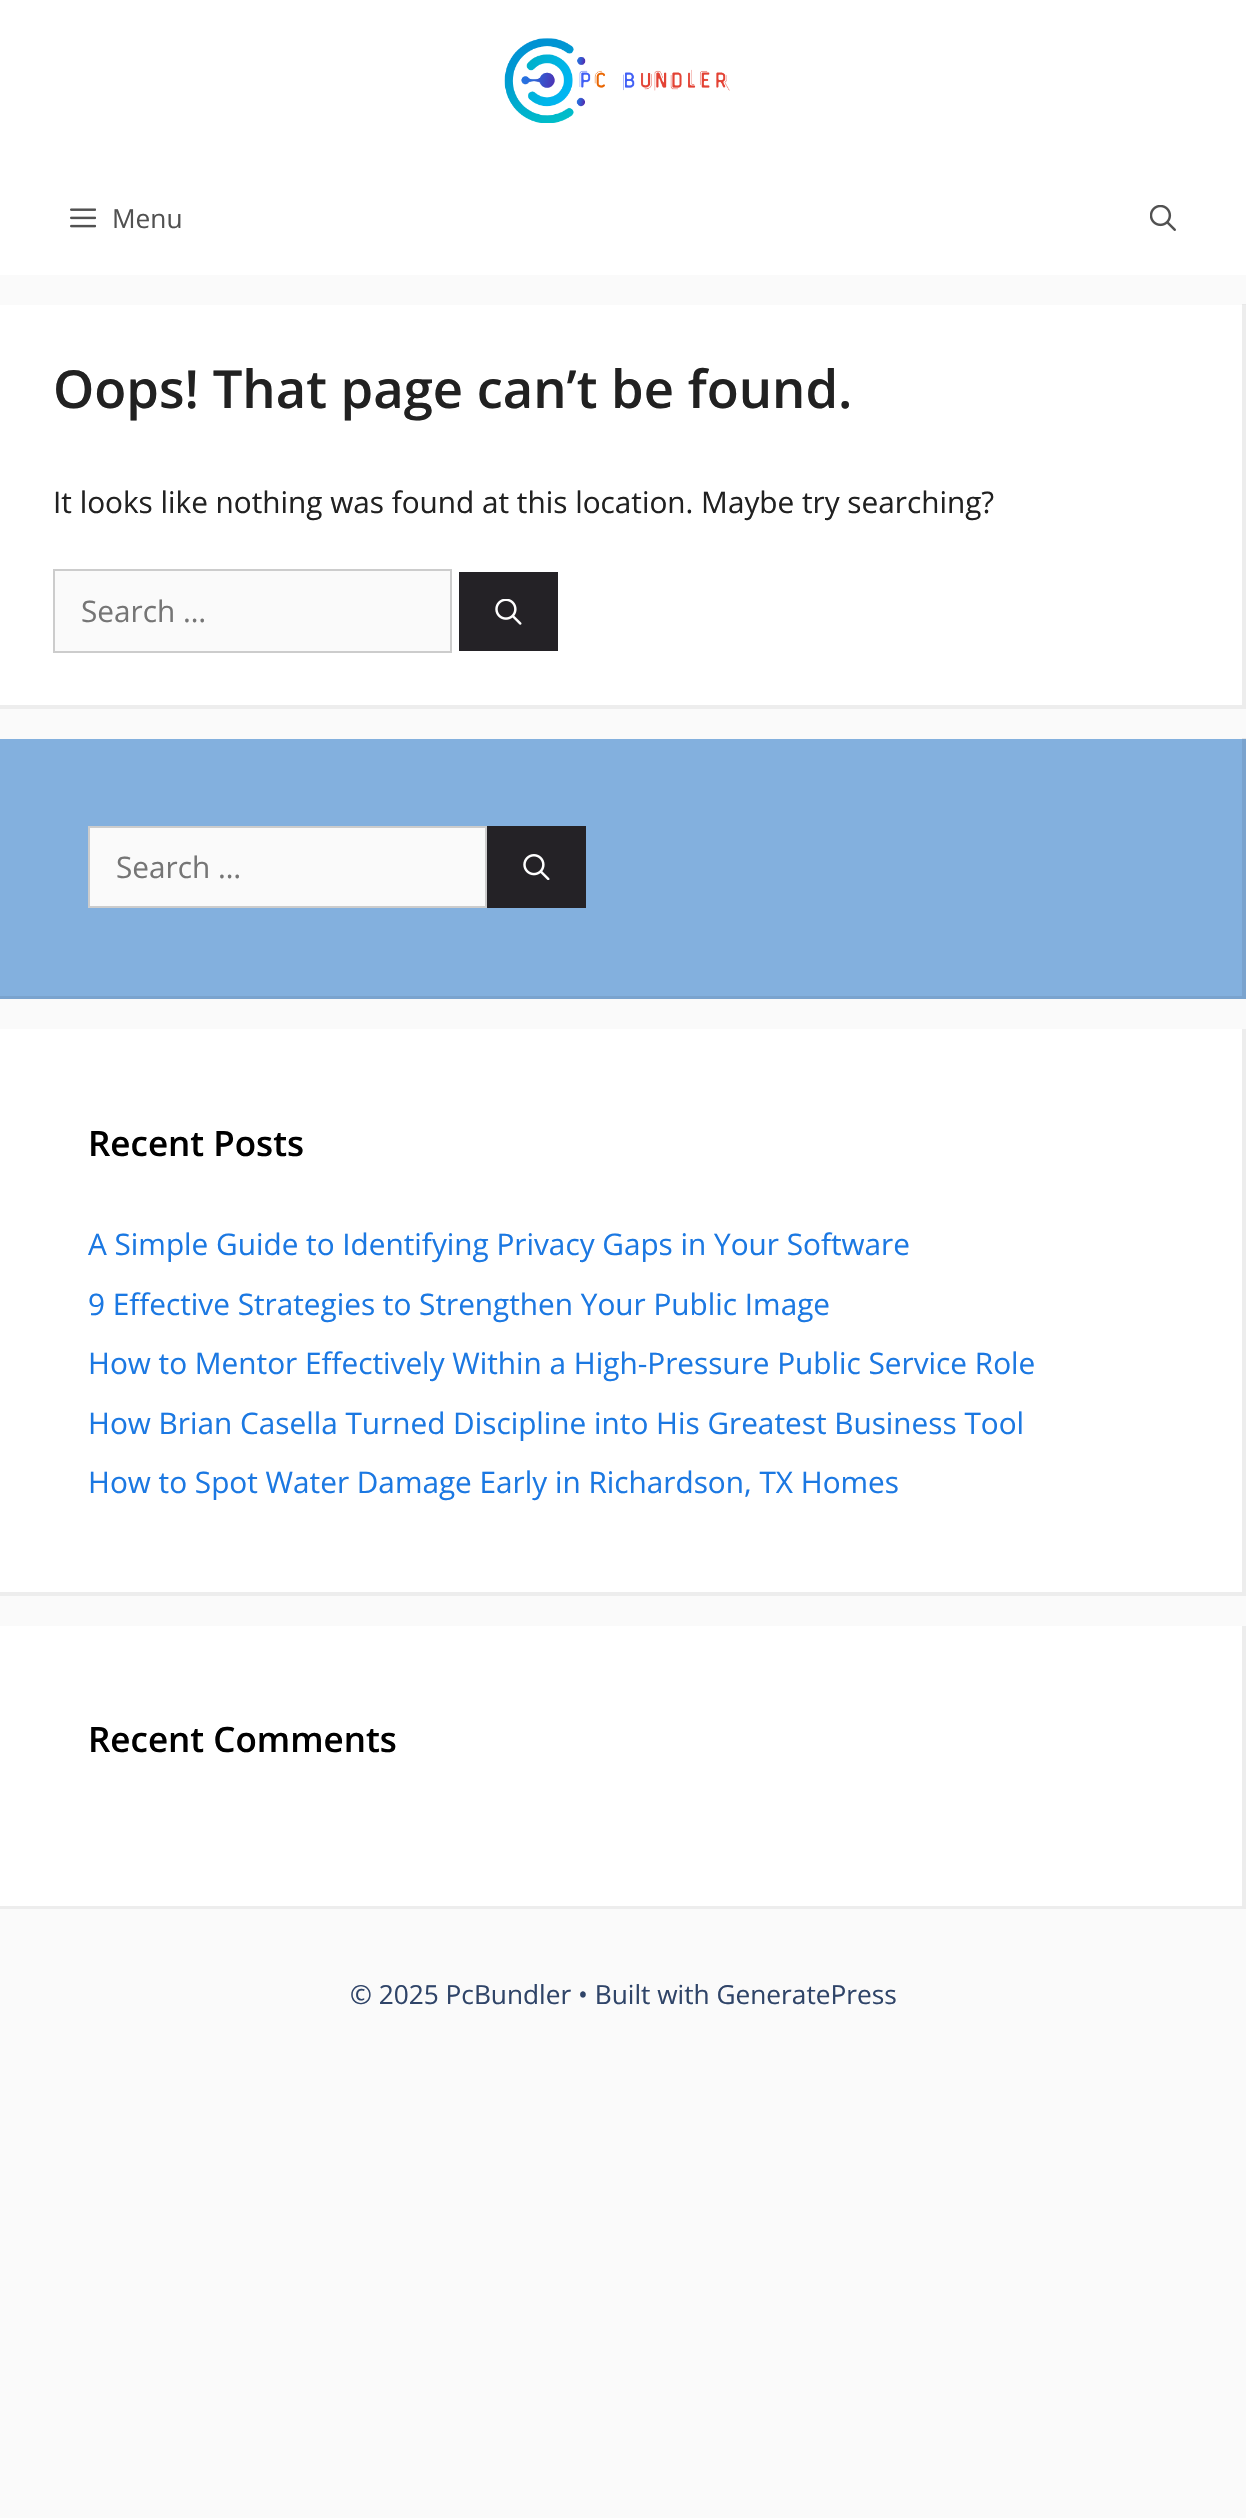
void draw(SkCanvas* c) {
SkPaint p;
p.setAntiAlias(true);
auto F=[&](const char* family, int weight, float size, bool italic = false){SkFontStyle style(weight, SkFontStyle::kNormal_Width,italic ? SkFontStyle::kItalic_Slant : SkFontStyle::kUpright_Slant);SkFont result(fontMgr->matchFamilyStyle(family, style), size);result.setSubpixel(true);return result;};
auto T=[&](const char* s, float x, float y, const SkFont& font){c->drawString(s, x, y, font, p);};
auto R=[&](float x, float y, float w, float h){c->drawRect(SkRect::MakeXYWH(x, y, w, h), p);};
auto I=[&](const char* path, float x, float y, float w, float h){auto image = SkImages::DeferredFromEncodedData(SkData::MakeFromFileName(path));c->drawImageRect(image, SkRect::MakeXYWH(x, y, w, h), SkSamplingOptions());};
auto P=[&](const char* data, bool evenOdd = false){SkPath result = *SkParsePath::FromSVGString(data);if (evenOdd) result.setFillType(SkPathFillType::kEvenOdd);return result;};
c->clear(0xfffafafa);
p.setColor(0xffffffff);
R(0,0,1246,275);
I("1.png",504,38,226,85);
I("2.png",70,208,26,20);
auto f1 = F("Open Sans",400,26.25);
p.setColor(0xff515151);
T("Menu",112,228,f1);
I("3.png",1150,205,26,26);
p.setColor(0xffffffff);
R(0,305,1246,404);
p.setColor(0x12000000);
c->drawPath(P("M1246 304v405l-4-4v-401z"),p);
c->drawPath(P("M1246 709h-1246v-4h1242z"),p);
auto f2 = F("Open Sans",600,52.5);
p.setColor(0xff212121);
T("Oops! That page can’t be found.",53,408,f2);
auto f3 = F("Open Sans",400,29.75);
T("It looks like nothing was found at this location. Maybe try searching?",53,513,f3);
p.setColor(0xfffafafa);
c->drawRect(SkRect::MakeXYWH(54,570,397,82),p);
p.setStroke(true);
p.setStrokeWidth(2);
p.setColor(0xffcccccc);
c->drawRect(SkRect::MakeXYWH(54,570,397,82),p);
p.setStroke(false);
p.setColor(0xff757575);
T("Search …",81,622,f3);
p.setColor(0xff242226);
R(459,572,99,79);
I("4.png",495,599,27,26);
p.setColor(0xff83b0de);
R(0,739,1246,260);
p.setColor(0x12000000);
c->drawPath(P("M1246 738v261l-4-3v-258z"),p);
c->drawPath(P("M1246 999h-1246v-3h1242z"),p);
p.setColor(0xfffafafa);
c->drawRect(SkRect::MakeXYWH(89,827,397,80),p);
p.setStroke(true);
p.setColor(0xffcccccc);
c->drawRect(SkRect::MakeXYWH(89,827,397,80),p);
p.setStroke(false);
p.setColor(0xff757575);
T("Search …",116,878,f3);
p.setColor(0xff242226);
R(487,826,99,82);
I("5.png",523,854,27,26);
p.setColor(0xffffffff);
R(0,1029,1246,567);
p.setColor(0xffededed);
c->drawPath(P("M1246 1029v567l-4-4v-563z"),p);
p.setColor(0x12000000);
c->drawPath(P("M1246 1596h-1246v-4h1242z"),p);
auto f4 = F("Open Sans",600,35);
p.setColor(0xff000000);
T("Recent Posts",88,1156,f4);
p.setColor(0xff1b78e2);
T("A Simple Guide to Identifying Privacy Gaps in Your Software",88,1255,f3);
T("9 Effective Strategies to Strengthen Your Public Image",88,1315,f3);
T("How to Mentor Effectively Within a High-Pressure Public Service Role",88,1374,f3);
T("How Brian Casella Turned Discipline into His Greatest Business Tool",88,1434,f3);
T("How to Spot Water Damage Early in Richardson, TX Homes",88,1493,f3);
p.setColor(0xffffffff);
R(0,1626,1246,283);
p.setColor(0xffededed);
c->drawPath(P("M1246 1626v283l-4-3v-280z"),p);
p.setColor(0x12000000);
c->drawPath(P("M1246 1909h-1246v-3h1242z"),p);
p.setColor(0xff000000);
T("Recent Comments",88,1752,f4);
p.setColor(0xff2f4468);
T("© 2025 PcBundler • Built with GeneratePress",350,2004,f1);
}
